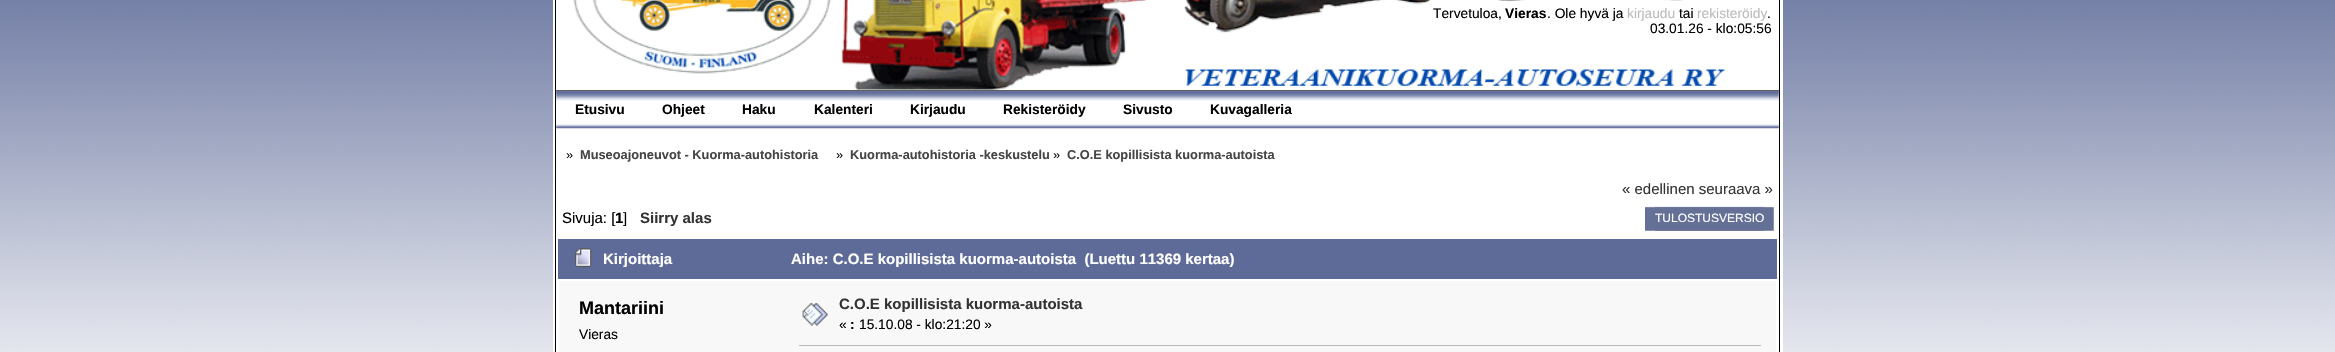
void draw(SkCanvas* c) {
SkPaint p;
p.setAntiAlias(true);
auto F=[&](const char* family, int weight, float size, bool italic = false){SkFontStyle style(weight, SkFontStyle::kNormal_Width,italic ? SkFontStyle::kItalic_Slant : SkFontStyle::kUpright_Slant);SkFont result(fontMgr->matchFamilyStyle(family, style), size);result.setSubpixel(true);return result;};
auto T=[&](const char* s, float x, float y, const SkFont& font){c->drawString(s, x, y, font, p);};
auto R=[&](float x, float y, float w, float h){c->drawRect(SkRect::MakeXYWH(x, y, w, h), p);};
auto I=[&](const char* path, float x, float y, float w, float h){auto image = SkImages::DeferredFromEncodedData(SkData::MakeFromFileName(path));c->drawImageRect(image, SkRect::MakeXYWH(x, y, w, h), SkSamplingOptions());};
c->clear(0xffffffff);
I("1.png",0,0,2335,352);
p.setColor(0xffffffff);
R(553,0,1230,352);
p.setColor(0xff000000);
R(1779,0,1,352);
R(555,0,1,352);
I("2.png",573,0,1153,90);
auto f1 = F("Liberation Sans",400,13.75);
T("Tervetuloa,",1433,18,f1);
auto f2 = F("Liberation Sans",700,13.75);
T("Vieras",1505,18,f2);
T(". Ole hyvä ja",1547,18,f1);
p.setColor(0xffbcbcbc);
T("kirjaudu",1627,18,f1);
p.setColor(0xff000000);
T("tai",1679,18,f1);
p.setColor(0xffbcbcbc);
T("rekisteröidy",1697,18,f1);
p.setColor(0xff000000);
T(".",1767,18,f1);
T("03.01.26 - klo:05:56",1650,33,f1);
I("3.png",556,91,1223,38);
p.setColor(0xff606060);
R(556,90,1223,1);
p.setColor(0xff000000);
T("Etusivu",575,114,f2);
T("Ohjeet",662,114,f2);
T("Haku",742,114,f2);
T("Kalenteri",814,114,f2);
T("Kirjaudu",910,114,f2);
T("Rekisteröidy",1003,114,f2);
T("Sivusto",1123,114,f2);
T("Kuvagalleria",1210,114,f2);
auto f3 = F("Liberation Sans",400,12.8);
T("»",566,159,f3);
auto f4 = F("Liberation Sans",700,12.8);
p.setColor(0xff454545);
T("Museoajoneuvot - Kuorma-autohistoria",580,159,f4);
p.setColor(0xff000000);
T("»",836,159,f3);
p.setColor(0xff454545);
T("Kuorma-autohistoria -keskustelu",850,159,f4);
p.setColor(0xff000000);
T("»",1053,159,f3);
p.setColor(0xff454545);
T("C.O.E kopillisista kuorma-autoista",1067,159,f4);
auto f5 = F("Liberation Sans",400,15);
p.setColor(0xff333333);
T("« edellinen seuraava »",1622,194,f5);
p.setColor(0xff000000);
T("Sivuja: [",562,223,f5);
auto f6 = F("Liberation Sans",700,15);
T("1",615,223,f6);
T("]",623,223,f5);
p.setColor(0xff333333);
T("Siirry alas",640,223,f6);
I("4.png",1645,206,119,25);
I("5.png",1655,206,119,25);
auto f7 = F("Liberation Sans",400,12);
p.setColor(0xffffffff);
T("TULOSTUSVERSIO",1655,222,f7);
p.setColor(0xff5e6b98);
R(558,239,1219,40);
I("6.png",575,248,17,20);
p.setColor(0xffffffff);
T("Kirjoittaja",603,264,f6);
T("Aihe: C.O.E kopillisista kuorma-autoista  (Luettu 11369 kertaa)",791,264,f6);
p.setColor(0xfff8f8f8);
R(559,281,1217,71);
auto f8 = F("Liberation Sans",700,18);
p.setColor(0xff000000);
T("Mantariini",579,314,f8);
T("Vieras",579,339,f1);
I("7.png",802,303,26,23);
p.setColor(0xff333333);
T("C.O.E kopillisista kuorma-autoista",839,309,f6);
p.setColor(0xff000000);
T("«",839,329,f1);
T(":",850,329,f2);
T("15.10.08 - klo:21:20 »",859,329,f1);
p.setColor(0xffbbbbbb);
R(799,345,962,1);
}
